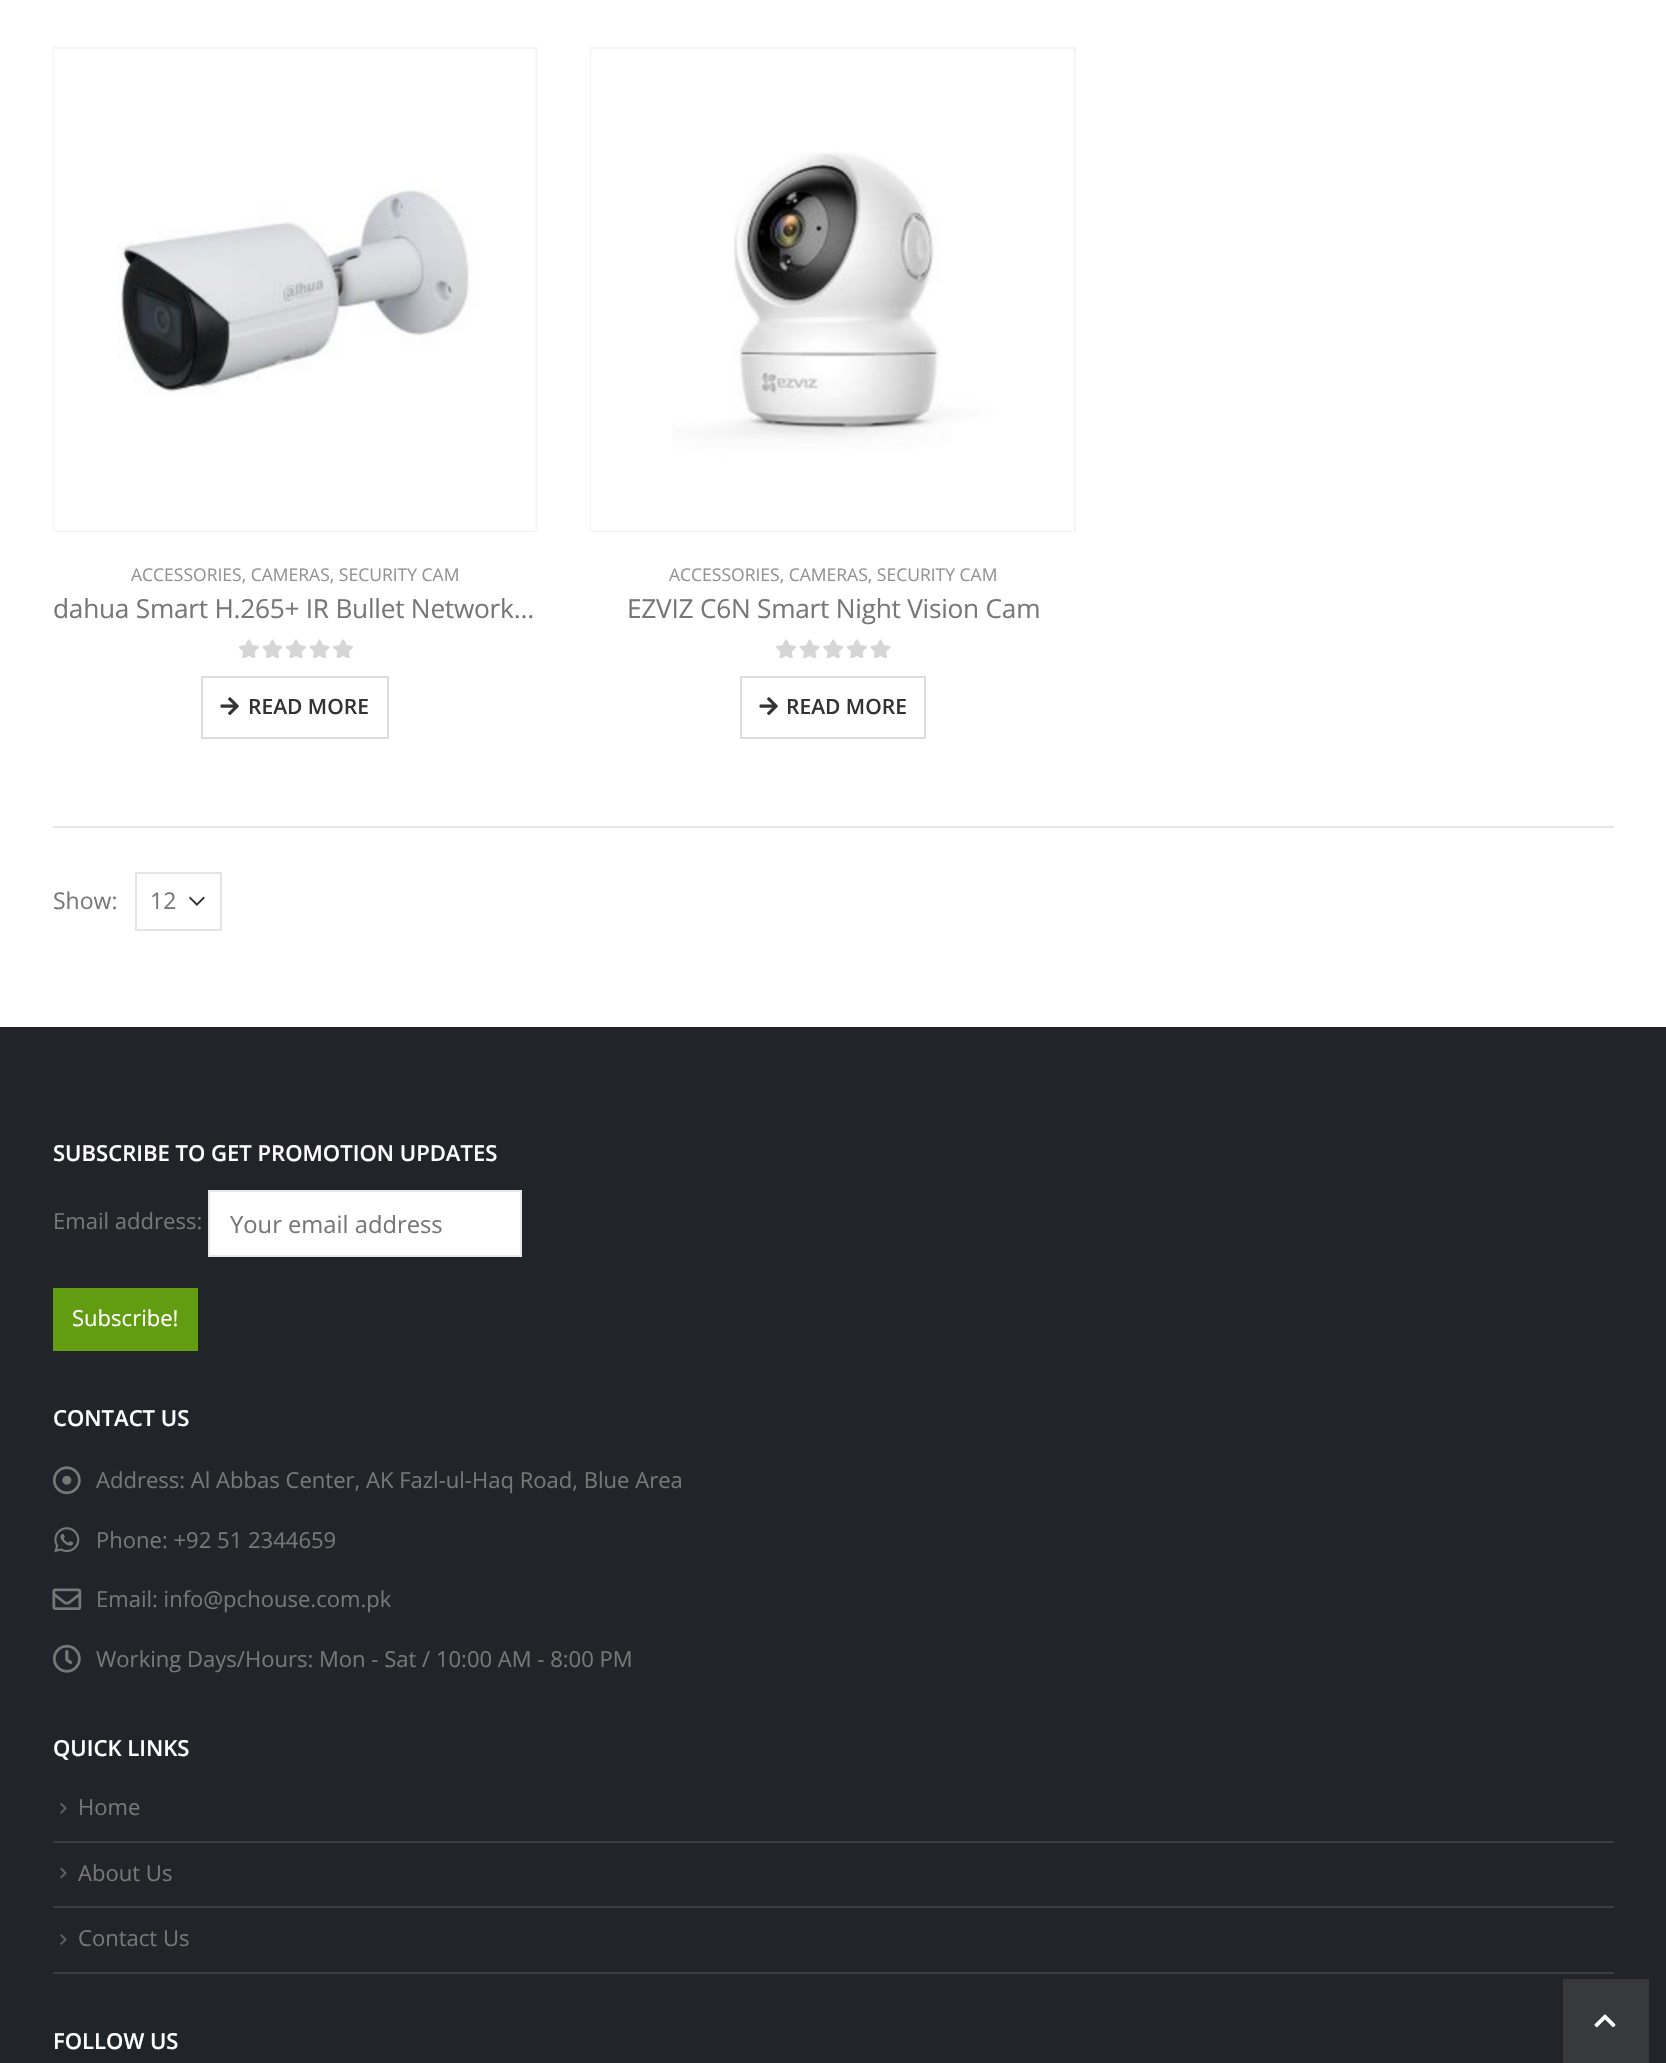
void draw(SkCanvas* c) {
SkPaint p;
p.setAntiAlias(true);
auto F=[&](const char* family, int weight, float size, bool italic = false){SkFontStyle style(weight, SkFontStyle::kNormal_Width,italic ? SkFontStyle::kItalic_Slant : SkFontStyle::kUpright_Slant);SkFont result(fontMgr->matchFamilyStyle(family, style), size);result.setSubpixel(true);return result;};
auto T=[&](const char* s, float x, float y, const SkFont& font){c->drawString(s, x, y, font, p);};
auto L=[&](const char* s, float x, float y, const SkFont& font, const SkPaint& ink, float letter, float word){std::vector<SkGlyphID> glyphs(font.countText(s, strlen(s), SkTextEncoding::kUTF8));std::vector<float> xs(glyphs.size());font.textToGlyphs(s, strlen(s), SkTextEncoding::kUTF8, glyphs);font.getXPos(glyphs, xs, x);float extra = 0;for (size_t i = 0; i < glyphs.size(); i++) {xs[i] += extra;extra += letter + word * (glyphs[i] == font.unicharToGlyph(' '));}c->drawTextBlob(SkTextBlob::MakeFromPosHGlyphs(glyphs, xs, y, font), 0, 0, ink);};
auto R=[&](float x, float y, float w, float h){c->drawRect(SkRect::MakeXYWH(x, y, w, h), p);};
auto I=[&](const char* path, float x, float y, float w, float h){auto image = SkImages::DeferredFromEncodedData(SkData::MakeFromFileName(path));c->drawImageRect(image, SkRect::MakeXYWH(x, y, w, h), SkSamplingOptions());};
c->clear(0xffffffff);
p.setStroke(true);
p.setStrokeWidth(2);
p.setColor(0xfff4f4f4);
c->drawRect(SkRect::MakeXYWH(54,48,482,483),p);
I("1.png",54,49,482,482);
auto f1 = F("Open Sans",400,17.5);
p.setStroke(false);
p.setColor(0xff929292);
T("ACCESSORIES, CAMERAS, SECURITY CAM",131,581,f1);
auto f2 = F("Open Sans",400,26.25);
p.setColor(0xff777777);
L("dahua Smart H.265+ IR Bullet Network…",53,618,f2,p,-.25,0);
I("2.png",239,639,114,19);
p.setStroke(true);
p.setColor(0xffdddddd);
c->drawRect(SkRect::MakeXYWH(202,677,186,61),p);
I("3.png",220,697,19,18);
auto f3 = F("Open Sans",600,21);
p.setStroke(false);
p.setColor(0xff333333);
T("READ MORE",248,714,f3);
p.setStroke(true);
p.setColor(0xfff4f4f4);
c->drawRect(SkRect::MakeXYWH(591,48,484,483),p);
I("4.png",591,49,483,482);
p.setStroke(false);
p.setColor(0xff929292);
T("ACCESSORIES, CAMERAS, SECURITY CAM",669,581,f1);
p.setColor(0xff777777);
L("EZVIZ C6N Smart Night Vision Cam",627,618,f2,p,-.25,0);
I("5.png",776,639,115,19);
p.setStroke(true);
p.setColor(0xffdddddd);
c->drawRect(SkRect::MakeXYWH(741,677,184,61),p);
I("3.png",759,697,19,18);
p.setStroke(false);
p.setColor(0xff333333);
T("READ MORE",786,714,f3);
p.setColor(0xffe7e7e7);
R(53,826,1561,2);
auto f4 = F("Open Sans",400,23);
p.setColor(0xff777777);
T("Show:",53,909,f4);
I("6.png",189,896,16,10);
p.setStroke(true);
p.setColor(0xffe4e4e4);
c->drawRect(SkRect::MakeXYWH(136,873,85,57),p);
p.setStroke(false);
p.setColor(0xff777777);
T("12",150,909,f4);
p.setColor(0xff212529);
R(0,1027,1666,1036);
auto f5 = F("Open Sans",600,22.05);
p.setColor(0xffffffff);
T("SUBSCRIBE TO GET PROMOTION UPDATES",53,1161,f5);
auto f6 = F("Open Sans",400,22.05);
p.setColor(0xff777777);
T("Email address:",53,1229,f6);
p.setColor(0xffffffff);
c->drawRect(SkRect::MakeXYWH(209,1191,312,65),p);
p.setStroke(true);
p.setColor(0xffe8e8e8);
c->drawRect(SkRect::MakeXYWH(209,1191,312,65),p);
auto f7 = F("Open Sans",400,23.75);
p.setStroke(false);
p.setColor(0xff777777);
T("Your email address",230,1233,f7);
p.setColor(0xff629c11);
R(53,1288,145,63);
p.setColor(0xffffffff);
T("Subscribe!",72,1326,f6);
T("CONTACT US",53,1426,f5);
I("7.png",53,1466,28,29);
p.setColor(0xff777777);
T("Address: Al Abbas Center, AK Fazl-ul-Haq Road, Blue Area",96,1488,f6);
I("8.png",54,1527,26,26);
T("Phone: +92 51 2344659",96,1548,f6);
I("9.png",52,1588,30,22);
T("Email: info@pchouse.com.pk",96,1607,f6);
I("10.png",53,1644,28,29);
T("Working Days/Hours: Mon - Sat / 10:00 AM - 8:00 PM",96,1667,f6);
p.setColor(0xffffffff);
T("QUICK LINKS",53,1756,f5);
p.setColor(0xff3b3e40);
R(53,1972,1561,2);
I("11.png",60,1803,7,11);
p.setColor(0xff777777);
T("Home",78,1815,f6);
p.setColor(0xff3b3e40);
R(53,1841,1561,2);
I("12.png",60,1867,7,12);
p.setColor(0xff777777);
T("About Us",78,1881,f6);
p.setColor(0xff3b3e40);
R(53,1906,1561,2);
I("13.png",60,1934,7,11);
p.setColor(0xff777777);
T("Contact Us",78,1946,f6);
p.setColor(0xffffffff);
T("FOLLOW US",53,2049,f5);
p.setColor(0xff38393a);
R(1563,1979,86,84);
I("14.png",1594,2014,22,14);
}
